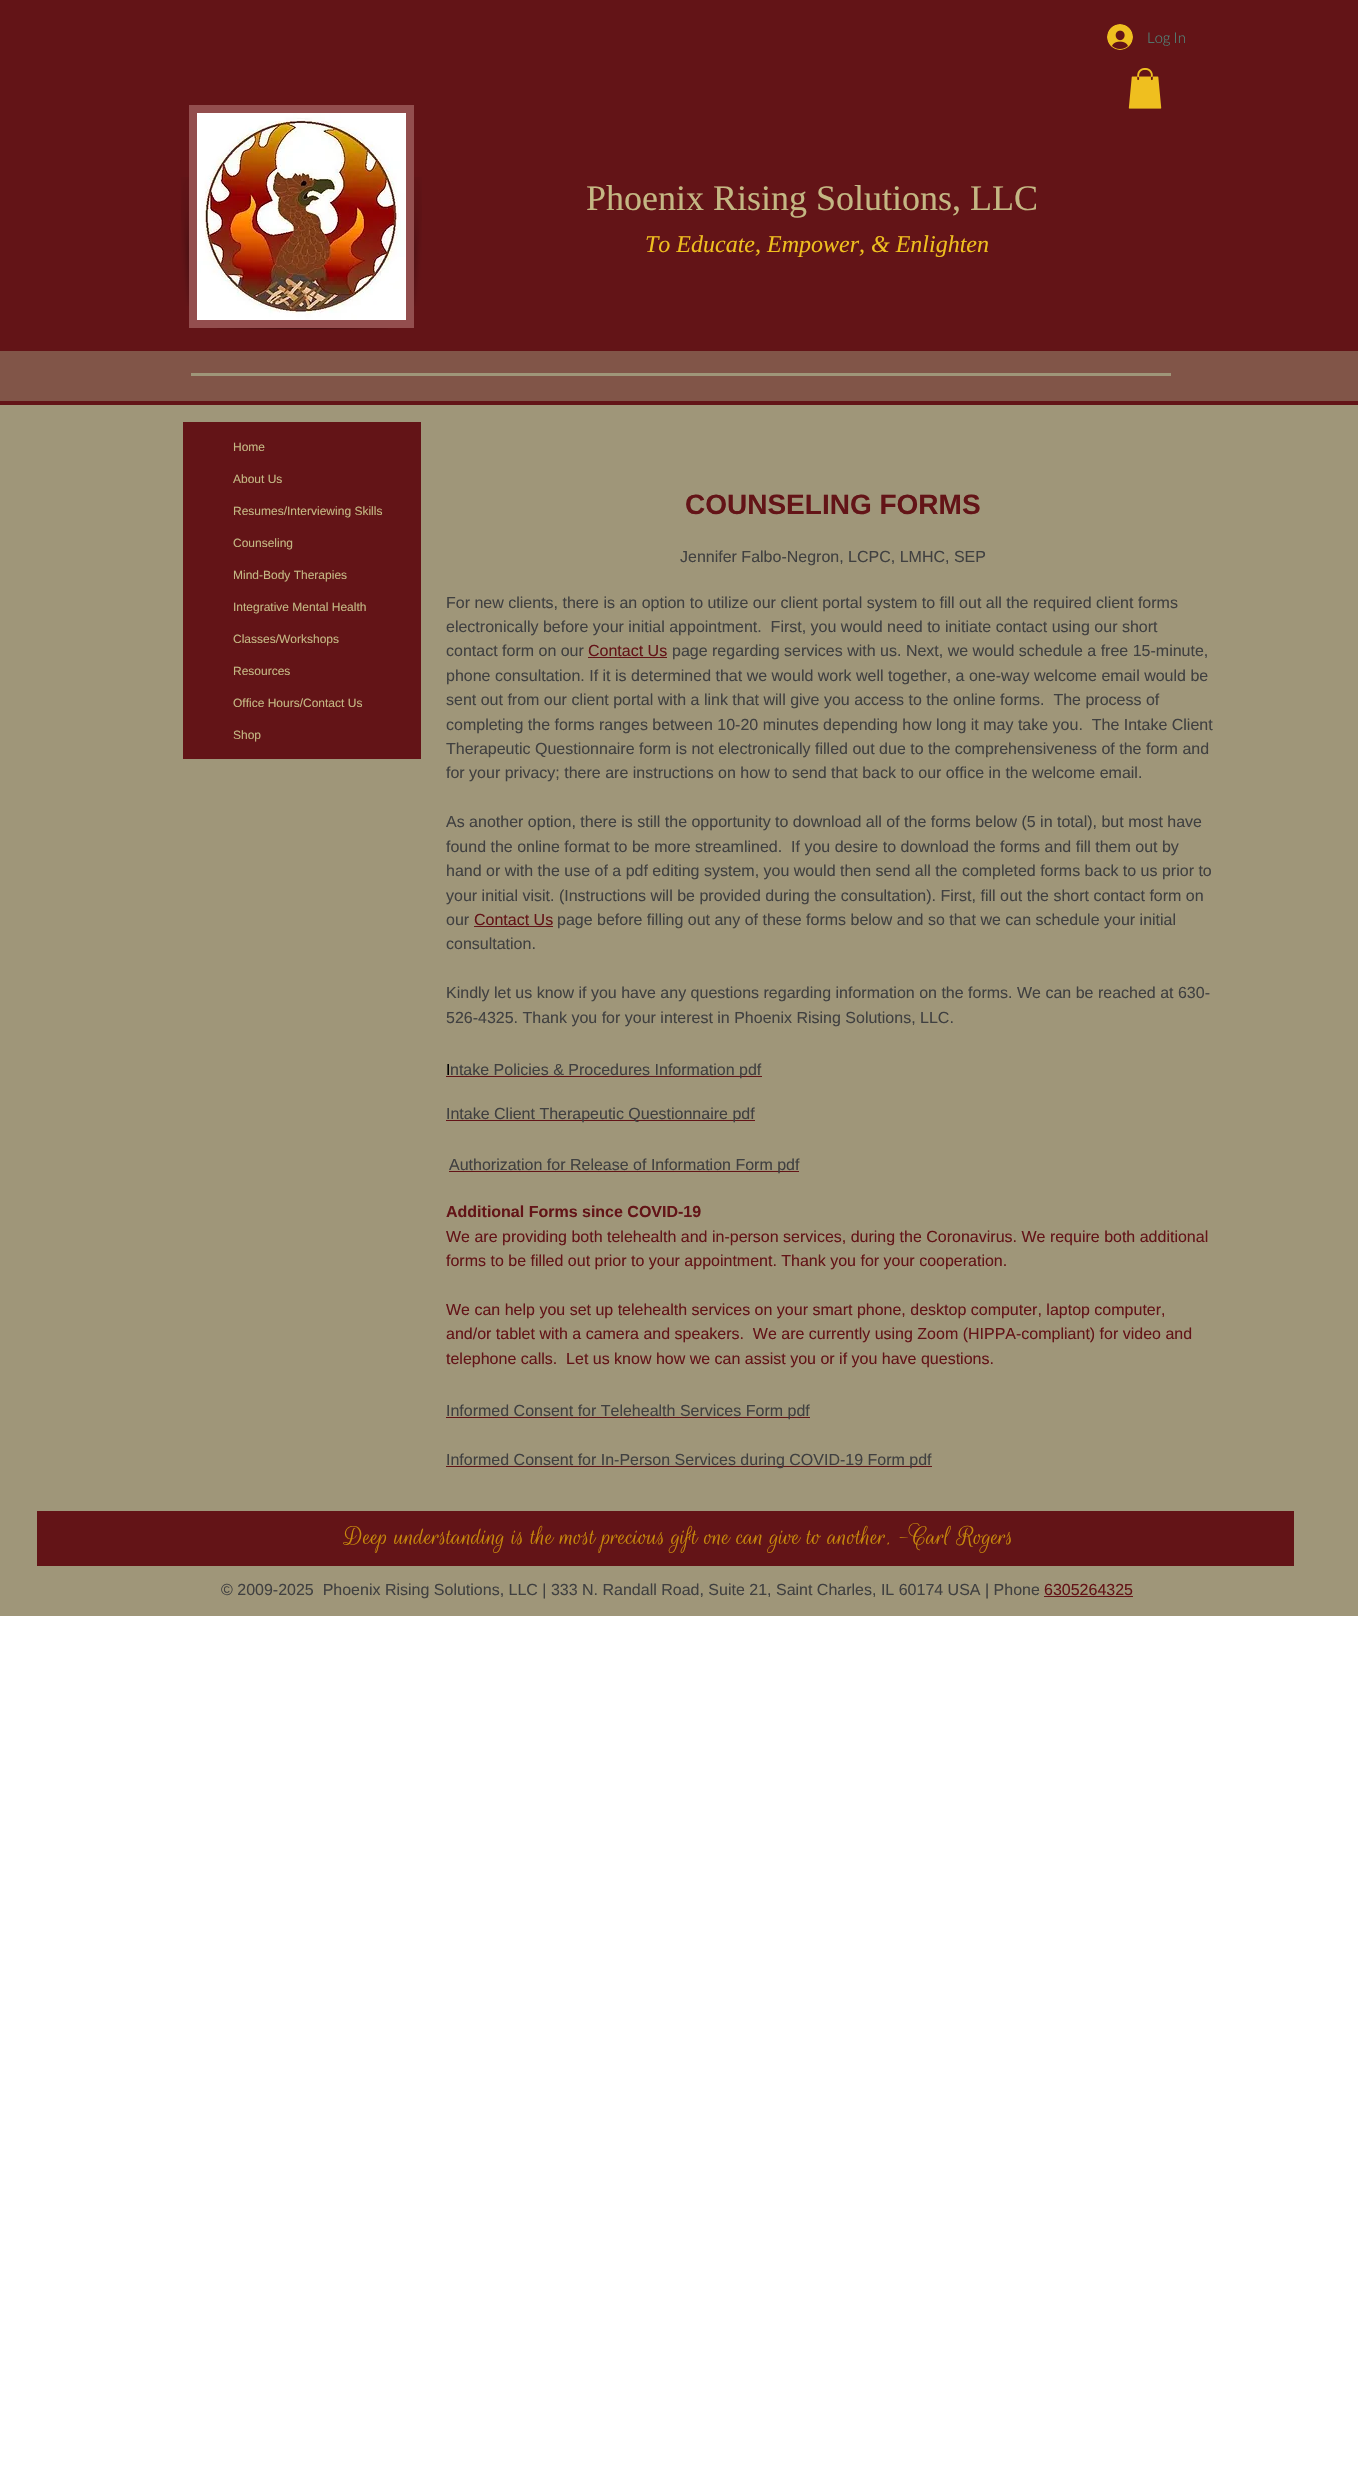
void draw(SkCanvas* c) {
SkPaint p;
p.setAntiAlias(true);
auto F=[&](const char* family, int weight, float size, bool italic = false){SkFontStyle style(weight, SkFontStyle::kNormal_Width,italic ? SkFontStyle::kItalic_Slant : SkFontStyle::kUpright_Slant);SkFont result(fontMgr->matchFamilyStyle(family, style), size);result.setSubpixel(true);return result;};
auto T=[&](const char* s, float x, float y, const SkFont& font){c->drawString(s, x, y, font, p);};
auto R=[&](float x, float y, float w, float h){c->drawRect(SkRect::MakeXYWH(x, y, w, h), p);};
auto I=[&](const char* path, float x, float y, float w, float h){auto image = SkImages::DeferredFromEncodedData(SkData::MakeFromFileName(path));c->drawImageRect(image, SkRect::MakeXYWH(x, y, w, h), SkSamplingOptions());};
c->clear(0xffffffff);
p.setColor(0xff631417);
R(0,0,1358,405);
I("1.png",1107,24,26,26);
auto f1 = F("Lato",300,15);
p.setColor(0xff4f8a7e);
T("Log In",1147,43,f1);
I("2.png",1128,68,34,41);
I("3.png",181,177,8,129);
p.setColor(0xff934e4e);
R(189,105,225,223);
I("4.png",197,113,209,207);
I("5.png",217,328,171,2);
I("6.png",414,177,8,129);
auto f2 = F("Liberation Serif",400,36);
p.setColor(0xffc4b783);
T("Phoenix Rising Solutions, LLC",586,210,f2);
auto f3 = F("Liberation Serif",400,24,true);
p.setColor(0xffefbf1f);
T("To Educate, Empower, & Enlighten",645,252,f3);
p.setColor(0xff815548);
R(0,351,1358,50);
p.setColor(0xff9f9679);
R(191,373,980,3);
R(0,405,1358,1211);
p.setColor(0xff631417);
R(183,422,238,337);
auto f4 = F("Liberation Sans",400,12);
p.setColor(0xffc4b783);
T("Home",233,451,f4);
T("About Us",233,483,f4);
T("Resumes/Interviewing Skills",233,515,f4);
T("Counseling",233,547,f4);
T("Mind-Body Therapies",233,579,f4);
T("Integrative Mental Health",233,611,f4);
T("Classes/Workshops",233,643,f4);
T("Resources",233,675,f4);
T("Office Hours/Contact Us",233,707,f4);
T("Shop",233,739,f4);
auto f5 = F("Liberation Sans",700,28);
p.setColor(0xff631417);
T("COUNSELING FORMS",685,514,f5);
auto f6 = F("Liberation Sans",400,16);
p.setColor(0xff404040);
T("Jennifer Falbo-Negron, LCPC, LMHC, SEP",680,562,f6);
T("For new clients, there is an option to utilize our client portal system to fill out all the required client forms",446,608,f6);
T("electronically before your initial appointment.  First, you would need to initiate contact using our short",446,632,f6);
T("contact form on our",446,656,f6);
p.setColor(0xff631417);
T("Contact Us",588,656,f6);
R(588,657,79,1);
p.setColor(0xff404040);
T("page regarding services with us. Next, we would schedule a free 15-minute,",672,656,f6);
T("phone consultation. If it is determined that we would work well together, a one-way welcome email would be",446,681,f6);
T("sent out from our client portal with a link that will give you access to the online forms.  The process of",446,705,f6);
T("completing the forms ranges between 10-20 minutes depending how long it may take you.  The Intake Client",446,730,f6);
T("Therapeutic Questionnaire form is not electronically filled out due to the comprehensiveness of the form and",446,754,f6);
T("for your privacy; there are instructions on how to send that back to our office in the welcome email.",446,778,f6);
T("As another option, there is still the opportunity to download all of the forms below (5 in total), but most have",446,827,f6);
T("found the online format to be more streamlined.  If you desire to download the forms and fill them out by",446,852,f6);
T("hand or with the use of a pdf editing system, you would then send all the completed forms back to us prior to",446,876,f6);
T("your initial visit. (Instructions will be provided during the consultation). First, fill out the short contact form on",446,901,f6);
T("our",446,925,f6);
p.setColor(0xff631417);
T("Contact Us",474,925,f6);
R(474,926,79,1);
p.setColor(0xff404040);
T("page before filling out any of these forms below and so that we can schedule your initial",557,925,f6);
T("consultation.",446,949,f6);
T("Kindly let us know if you have any questions regarding information on the forms. We can be reached at 630-",446,998,f6);
T("526-4325. Thank you for your interest in Phoenix Rising Solutions, LLC.",446,1023,f6);
p.setColor(0xff000000);
T("I",446,1075,f6);
p.setColor(0xff631417);
R(446,1076,316,1);
p.setColor(0xff404040);
T("ntake Policies & Procedures Information pdf",450,1075,f6);
p.setColor(0xff631417);
R(446,1120,309,1);
p.setColor(0xff404040);
T("Intake Client Therapeutic Questionnaire pdf",446,1119,f6);
p.setColor(0xff631417);
R(449,1171,350,1);
p.setColor(0xff404040);
T("Authorization for Release of Information Form pdf",449,1170,f6);
auto f7 = F("Liberation Sans",700,16);
p.setColor(0xff631417);
T("Additional Forms since COVID-19",446,1217,f7);
T("We are providing both telehealth and in-person services, during the Coronavirus. We require both additional",446,1242,f6);
T("forms to be filled out prior to your appointment. Thank you for your cooperation.",446,1266,f6);
T("We can help you set up telehealth services on your smart phone, desktop computer, laptop computer,",446,1315,f6);
T("and/or tablet with a camera and speakers.  We are currently using Zoom (HIPPA-compliant) for video and",446,1339,f6);
T("telephone calls.  Let us know how we can assist you or if you have questions.",446,1364,f6);
R(446,1417,364,1);
p.setColor(0xff404040);
T("Informed Consent for Telehealth Services Form pdf",446,1416,f6);
p.setColor(0xff631417);
R(446,1466,486,1);
p.setColor(0xff404040);
T("Informed Consent for In-Person Services during COVID-19 Form pdf",446,1465,f6);
p.setColor(0xff631417);
R(37,1511,1257,55);
auto f8 = F("Rouge Script",400,28);
p.setColor(0xffc7880b);
T("Deep understanding is the most precious gift one can give to another. -Carl Rogers",344,1544,f8);
p.setColor(0xff404040);
T("© 2009-2025  Phoenix Rising Solutions, LLC | 333 N. Randall Road, Suite 21, Saint Charles, IL 60174 USA | Phone",221,1595,f6);
p.setColor(0xff631417);
T("6305264325",1044,1595,f6);
R(1044,1596,89,1);
}
